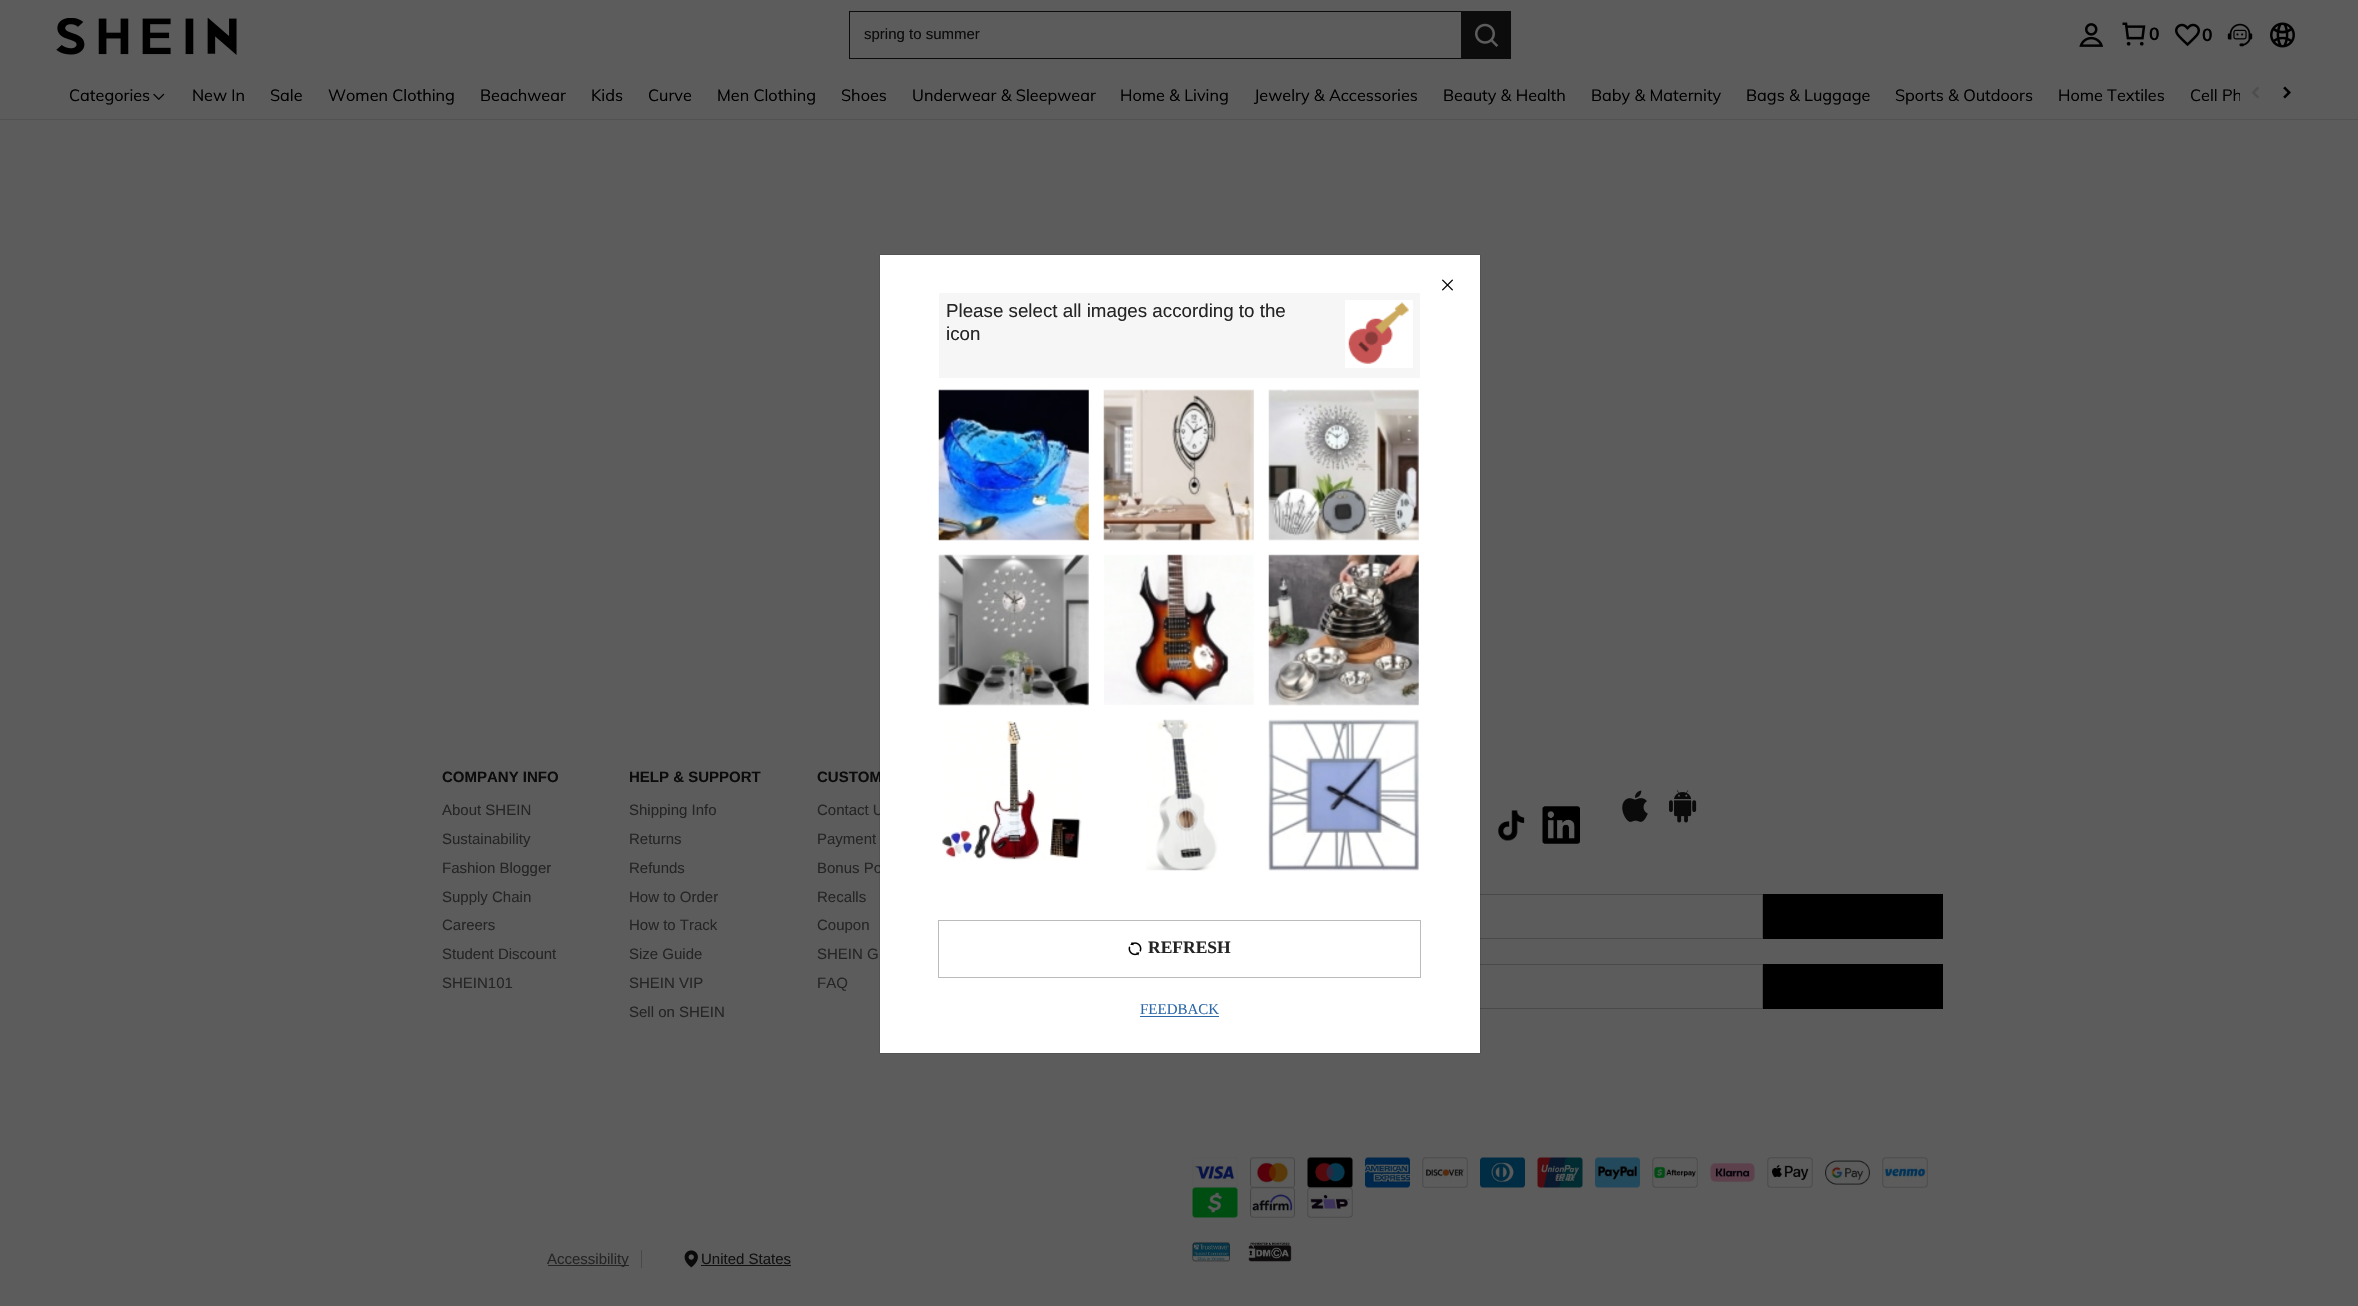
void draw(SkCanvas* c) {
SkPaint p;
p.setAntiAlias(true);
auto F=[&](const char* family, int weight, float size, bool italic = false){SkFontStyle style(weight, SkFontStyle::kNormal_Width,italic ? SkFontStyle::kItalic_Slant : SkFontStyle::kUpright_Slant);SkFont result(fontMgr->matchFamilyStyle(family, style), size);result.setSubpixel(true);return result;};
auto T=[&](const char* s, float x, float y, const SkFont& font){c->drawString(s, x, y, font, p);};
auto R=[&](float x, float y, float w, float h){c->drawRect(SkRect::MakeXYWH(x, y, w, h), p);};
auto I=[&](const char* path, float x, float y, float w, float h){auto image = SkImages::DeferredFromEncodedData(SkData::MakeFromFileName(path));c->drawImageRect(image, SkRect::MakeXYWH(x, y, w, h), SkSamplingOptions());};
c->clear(0xff5c5c5c);
I("1.png",56,18,181,37);
p.setColor(0xff0c0c0c);
R(849,11,612,1);
R(849,58,612,1);
R(849,11,1,48);
auto f1 = F("Liberation Sans",400,15);
T("spring to summer",864,39,f1);
R(1461,11,50,48);
I("2.png",1475,23,24,24);
I("3.png",2079,23,25,24);
I("4.png",2122,22,24,24);
auto f2 = F("Muli",700,17.5);
p.setColor(0xff000000);
T("0",2149,40,f2);
I("5.png",2175,23,25,24);
T("0",2202,41,f2);
I("6.png",2227,23,26,24);
I("7.png",2270,22,25,26);
p.setColor(0xff525252);
R(0,119,2358,1);
auto f3 = F("Muli",400,16.25);
p.setColor(0xff000000);
T("Categories",69,101,f3);
I("8.png",153,93,12,7);
T("New In",192,101,f3);
T("Sale",270,101,f3);
T("Women Clothing",328,101,f3);
T("Beachwear",480,101,f3);
T("Kids",591,101,f3);
T("Curve",648,101,f3);
T("Men Clothing",717,101,f3);
T("Shoes",841,101,f3);
T("Underwear & Sleepwear",912,101,f3);
T("Home & Living",1120,101,f3);
T("Jewelry & Accessories",1254,101,f3);
T("Beauty & Health",1443,101,f3);
T("Baby & Maternity",1591,101,f3);
T("Bags & Luggage",1746,101,f3);
T("Sports & Outdoors",1895,101,f3);
T("Home Textiles",2058,101,f3);
T("Cell Ph",2190,101,f3);
p.setColor(0xff5c5c5c);
R(2240,93,1,8);
I("9.png",2251,86,8,13);
I("10.png",2283,86,8,13);
auto f4 = F("Liberation Sans",700,15);
p.setColor(0xff0c0c0c);
T("COMPANY INFO",442,782,f4);
p.setColor(0xff252525);
T("About SHEIN",442,815,f1);
T("Sustainability",442,844,f1);
T("Fashion Blogger",442,873,f1);
T("Supply Chain",442,902,f1);
T("Careers",442,930,f1);
T("Student Discount",442,959,f1);
T("SHEIN101",442,988,f1);
p.setColor(0xff0c0c0c);
T("HELP & SUPPORT",629,782,f4);
p.setColor(0xff252525);
T("Shipping Info",629,815,f1);
T("Returns",629,844,f1);
T("Refunds",629,873,f1);
T("How to Order",629,902,f1);
T("How to Track",629,930,f1);
T("Size Guide",629,959,f1);
T("SHEIN VIP",629,988,f1);
T("Sell on SHEIN",629,1017,f1);
p.setColor(0xff0c0c0c);
T("CUSTOM",817,782,f4);
p.setColor(0xff252525);
T("Contact U",817,815,f1);
T("Payment",817,844,f1);
T("Bonus Po",817,873,f1);
T("Recalls",817,902,f1);
T("Coupon",817,930,f1);
T("SHEIN G",817,959,f1);
T("FAQ",817,988,f1);
I("11.png",1498,810,27,31);
I("12.png",1542,806,38,38);
I("13.png",1622,790,26,32);
I("14.png",1669,790,28,33);
p.setStroke(true);
p.setStrokeWidth(1);
p.setColor(0xff494949);
c->drawRect(SkRect::MakeXYWH(1193.5,894.5,569,44),p);
p.setStroke(false);
p.setColor(0xff000000);
R(1763,894,180,45);
p.setStroke(true);
p.setColor(0xff494949);
c->drawRect(SkRect::MakeXYWH(1293.5,964.5,469,44),p);
p.setStroke(false);
p.setColor(0xff000000);
R(1763,964,180,45);
I("15.png",1192,1157,46,31);
I("16.png",1250,1157,45,31);
I("17.png",1307,1157,46,31);
I("18.png",1365,1157,45,31);
I("19.png",1422,1157,46,31);
I("20.png",1480,1157,45,31);
I("21.png",1537,1157,46,31);
I("22.png",1595,1157,45,31);
I("23.png",1652,1157,46,31);
I("24.png",1710,1163,45,20);
I("25.png",1767,1157,46,31);
I("26.png",1825,1160,45,25);
I("27.png",1882,1157,46,31);
I("28.png",1192,1187,46,31);
I("29.png",1250,1187,45,31);
I("30.png",1307,1187,46,31);
p.setColor(0xff494949);
R(641,1250,1,18);
p.setColor(0xff252525);
R(548,1265,81,1);
T("Accessibility",547,1264,f1);
I("31.png",684,1250,14,18);
p.setColor(0xff121212);
T("United States",701,1264,f1);
R(701,1265,90,1);
I("32.png",1192,1242,38,20);
I("33.png",1248,1242,44,20);
p.setColor(0x4d000000);
p.setMaskFilter(SkMaskFilter::MakeBlur(kNormal_SkBlurStyle, .5));
c->drawRect(SkRect::MakeXYWH(880,255,600,798),p);
p.setMaskFilter(nullptr);
p.setMaskFilter(SkMaskFilter::MakeBlur(kNormal_SkBlurStyle, .5));
c->drawRect(SkRect::MakeXYWH(880,255,600,798),p);
p.setMaskFilter(nullptr);
p.setColor(0xffffffff);
R(880,255,600,798);
I("34.png",1442,279,11,12);
p.setColor(0xfff6f6f6);
R(939,293,481,85);
auto f5 = F("Liberation Sans",400,18.75);
p.setColor(0xff252525);
T("Please select all images according to the",946,317,f5);
T("icon",946,340,f5);
p.setColor(0xffffffff);
R(1345,300,68,68);
I("35.png",1348,302,61,62);
I("36.png",938,389,151,152);
I("37.png",1103,389,151,152);
I("38.png",1268,389,151,152);
I("39.png",938,554,151,152);
I("40.png",1104,554,150,151);
I("41.png",1268,554,151,152);
I("42.png",942,720,140,141);
I("43.png",1146,719,72,152);
I("44.png",1268,719,151,152);
p.setStroke(true);
p.setColor(0xffbbbbbb);
c->drawRect(SkRect::MakeXYWH(938.5,920.5,482,57),p);
I("45.png",1128,942,14,14);
auto f6 = F("Liberation Serif",700,17.5);
p.setStroke(false);
p.setColor(0xff252525);
T("REFRESH",1148,953,f6);
auto f7 = F("Liberation Serif",400,15);
p.setColor(0xff2d68a8);
T("FEEDBACK",1140,1014,f7);
R(1140,1016,79,1);
}
